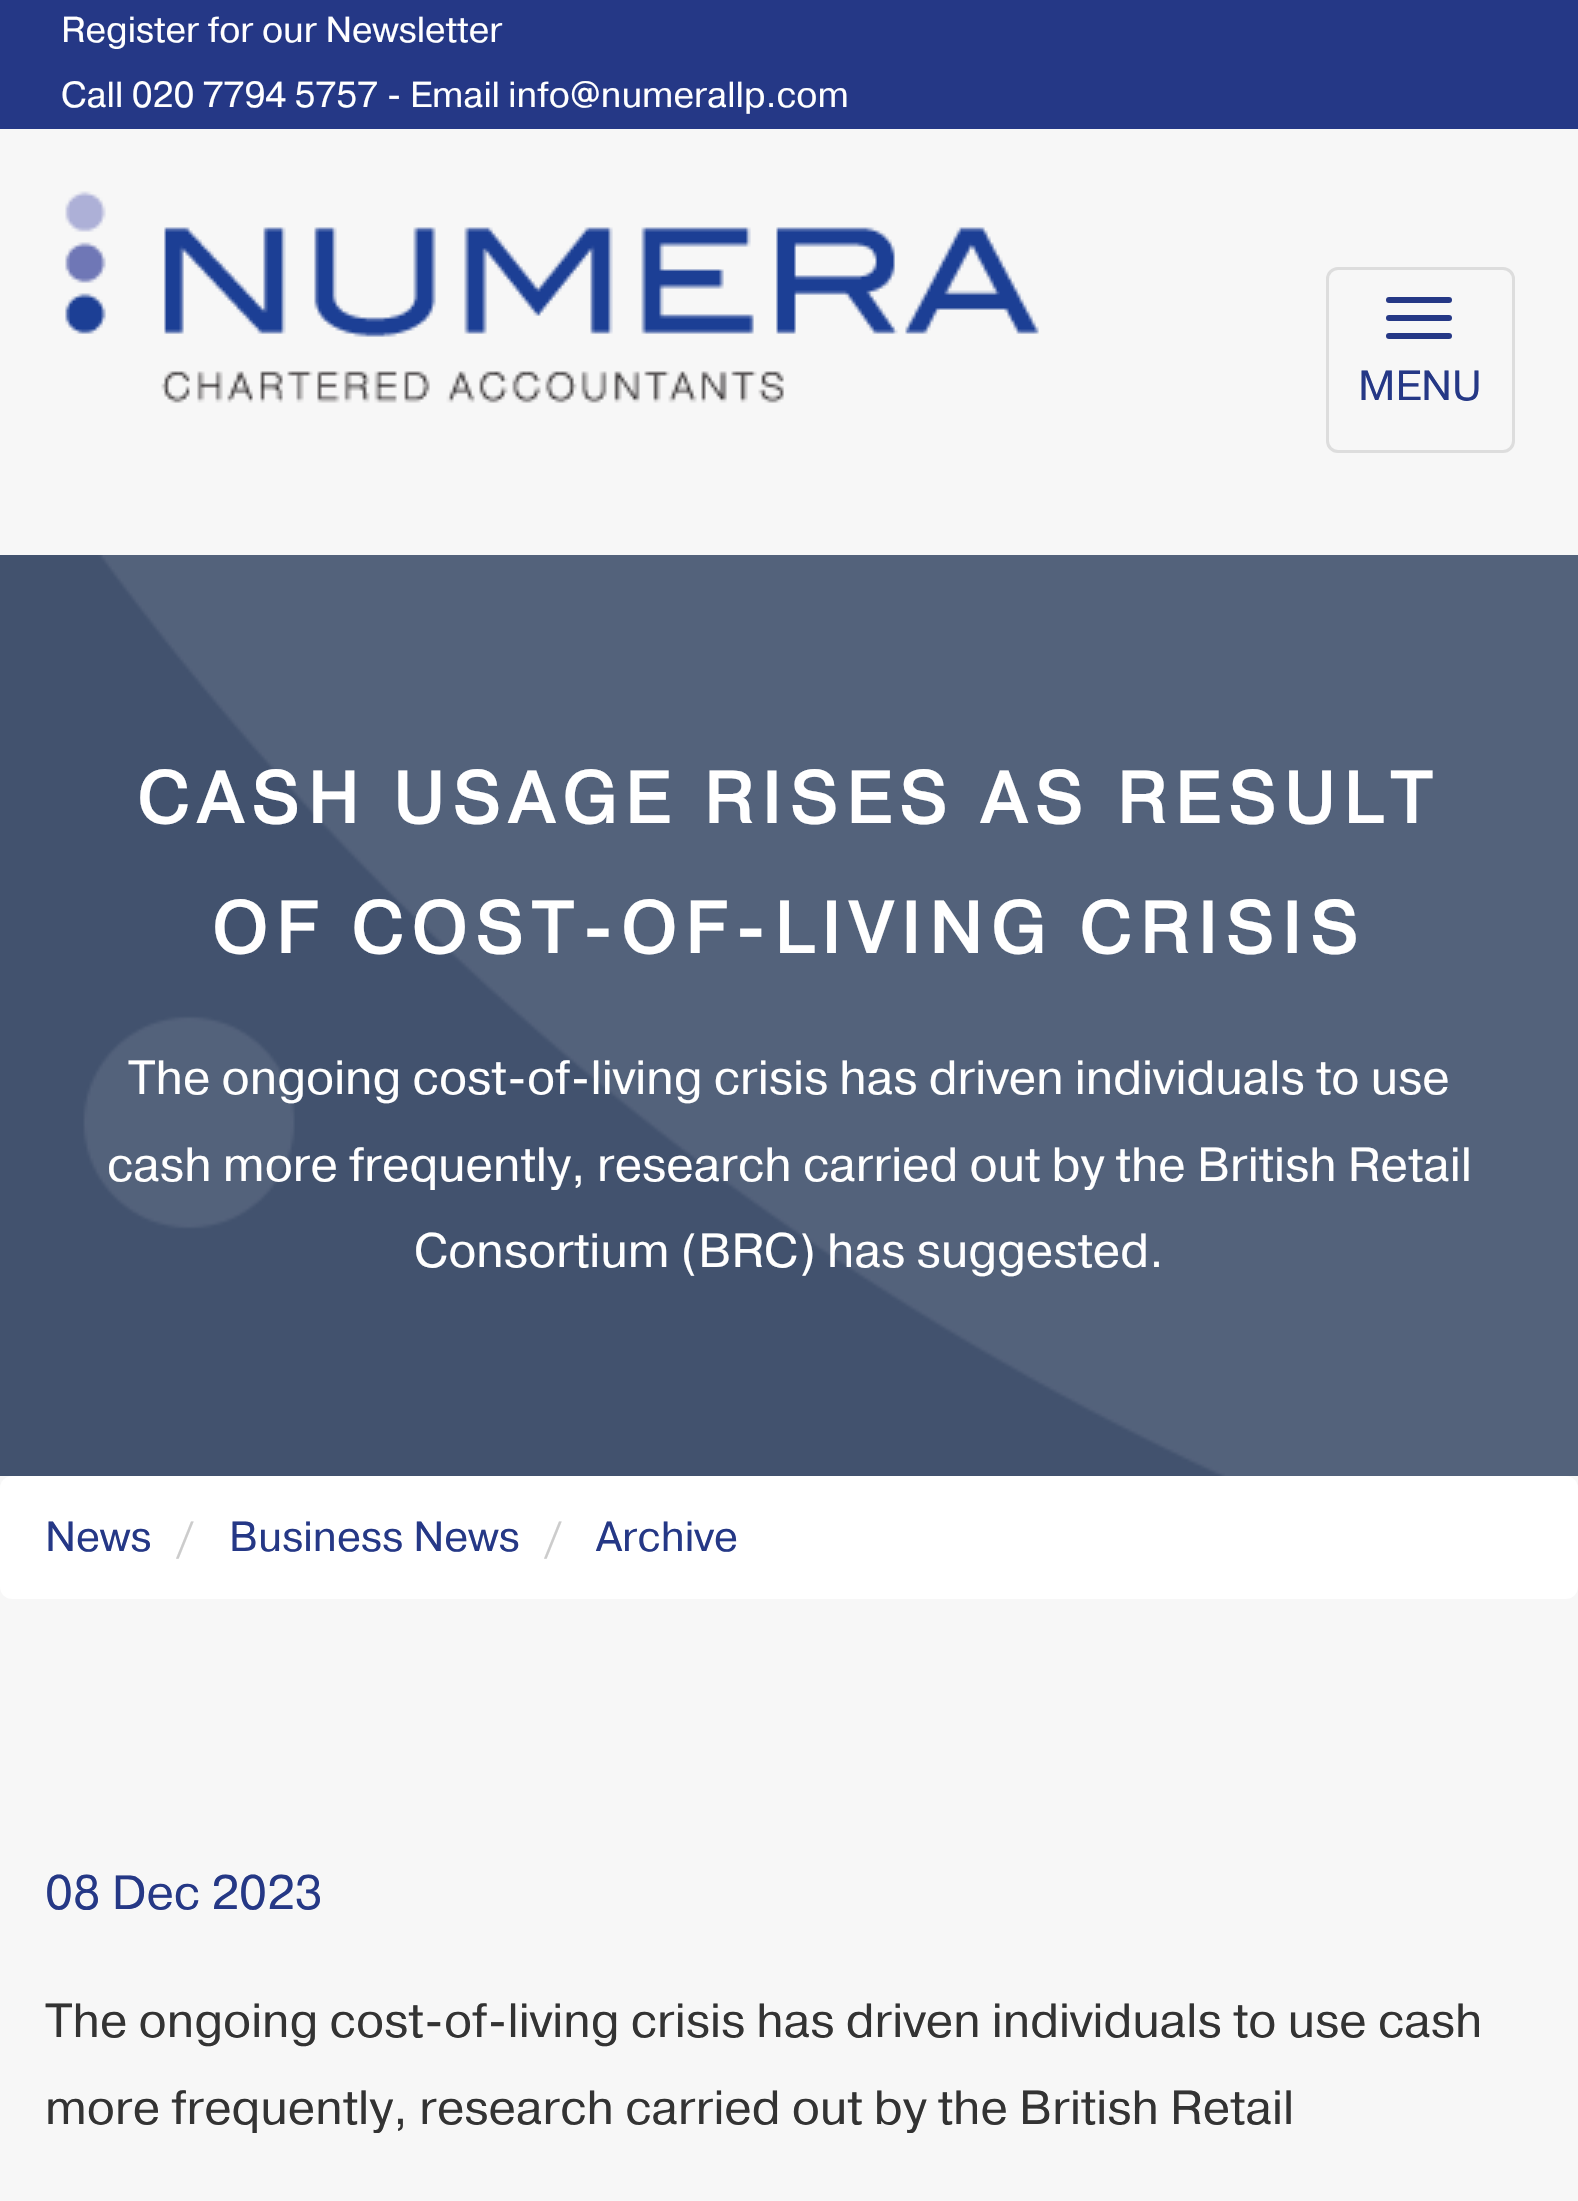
void draw(SkCanvas* c) {
SkPaint p;
p.setAntiAlias(true);
auto F=[&](const char* family, int weight, float size, bool italic = false){SkFontStyle style(weight, SkFontStyle::kNormal_Width,italic ? SkFontStyle::kItalic_Slant : SkFontStyle::kUpright_Slant);SkFont result(fontMgr->matchFamilyStyle(family, style), size);result.setSubpixel(true);return result;};
auto T=[&](const char* s, float x, float y, const SkFont& font){c->drawString(s, x, y, font, p);};
auto L=[&](const char* s, float x, float y, const SkFont& font, const SkPaint& ink, float letter, float word){std::vector<SkGlyphID> glyphs(font.countText(s, strlen(s), SkTextEncoding::kUTF8));std::vector<float> xs(glyphs.size());font.textToGlyphs(s, strlen(s), SkTextEncoding::kUTF8, glyphs);font.getXPos(glyphs, xs, x);float extra = 0;for (size_t i = 0; i < glyphs.size(); i++) {xs[i] += extra;extra += letter + word * (glyphs[i] == font.unicharToGlyph(' '));}c->drawTextBlob(SkTextBlob::MakeFromPosHGlyphs(glyphs, xs, y, font), 0, 0, ink);};
auto R=[&](float x, float y, float w, float h){c->drawRect(SkRect::MakeXYWH(x, y, w, h), p);};
auto Q=[&](float x, float y, float w, float h, float radius){c->drawRoundRect(SkRect::MakeXYWH(x, y, w, h), radius, radius, p);};
auto I=[&](const char* path, float x, float y, float w, float h){auto image = SkImages::DeferredFromEncodedData(SkData::MakeFromFileName(path));c->drawImageRect(image, SkRect::MakeXYWH(x, y, w, h), SkSamplingOptions());};
c->clear(0xfff7f7f7);
p.setColor(0xff253886);
R(0,0,1578,129);
auto f1 = F("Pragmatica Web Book",400,36);
p.setColor(0xffffffff);
T("Register for our Newsletter",61,42,f1);
T("Call 020 7794 5757 - Email info@numerallp.com",61,107,f1);
I("1.png",65,191,974,212);
p.setStroke(true);
p.setStrokeWidth(3);
p.setColor(0xffdddddd);
c->drawRoundRect(SkRect::MakeXYWH(1327.5,268.5,186,183),10.5,10.5,p);
p.setStroke(false);
p.setColor(0xff253886);
Q(1386,297,66,6,3);
Q(1386,315,66,6,3);
Q(1386,333,66,6,3);
auto f2 = F("Pragmatica Web Book",400,42);
T("MENU",1358,400,f2);
p.setColor(0xff42526e);
R(0,555,1578,921);
I("2.png",83,555,1495,921);
auto f3 = F("Pragmatica Web Book",700,72);
p.setColor(0xffffffff);
L("CASH USAGE RISES AS RESULT",137,823,f3,p,9,0);
L("OF COST-OF-LIVING CRISIS",212,953,f3,p,9,0);
auto f4 = F("Pragmatica Web Book",400,48);
T("The ongoing cost-of-living crisis has driven individuals to use",128,1094,f4);
T("cash more frequently, research carried out by the British Retail",107,1181,f4);
T("Consortium (BRC) has suggested.",414,1267,f4);
Q(0,1476,1578,123,12);
p.setColor(0xff253886);
T("News",45,1551,f2);
p.setColor(0xffcccccc);
T("/",176,1551,f2);
p.setColor(0xff253886);
T("Business News",229,1551,f2);
p.setColor(0xffcccccc);
T("/",544,1551,f2);
p.setColor(0xff253886);
T("Archive",596,1551,f2);
T("08 Dec 2023",45,1909,f4);
p.setColor(0xff333333);
T("The ongoing cost-of-living crisis has driven individuals to use cash",45,2037,f4);
T("more frequently, research carried out by the British Retail",45,2124,f4);
}
